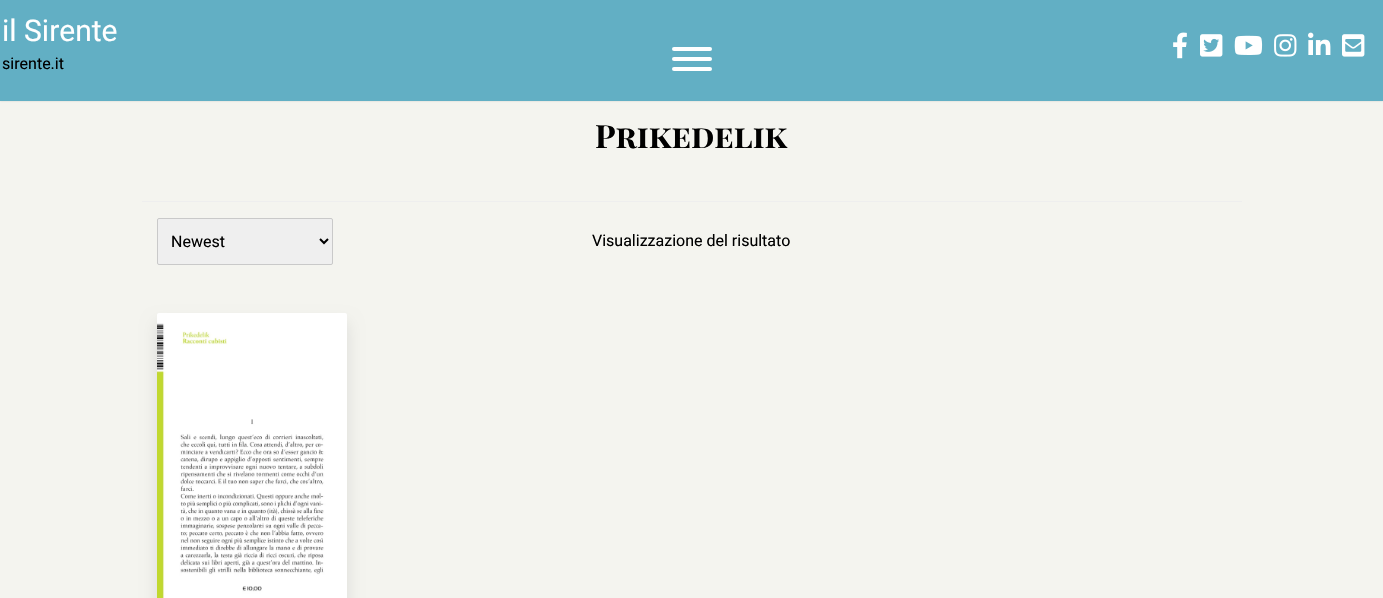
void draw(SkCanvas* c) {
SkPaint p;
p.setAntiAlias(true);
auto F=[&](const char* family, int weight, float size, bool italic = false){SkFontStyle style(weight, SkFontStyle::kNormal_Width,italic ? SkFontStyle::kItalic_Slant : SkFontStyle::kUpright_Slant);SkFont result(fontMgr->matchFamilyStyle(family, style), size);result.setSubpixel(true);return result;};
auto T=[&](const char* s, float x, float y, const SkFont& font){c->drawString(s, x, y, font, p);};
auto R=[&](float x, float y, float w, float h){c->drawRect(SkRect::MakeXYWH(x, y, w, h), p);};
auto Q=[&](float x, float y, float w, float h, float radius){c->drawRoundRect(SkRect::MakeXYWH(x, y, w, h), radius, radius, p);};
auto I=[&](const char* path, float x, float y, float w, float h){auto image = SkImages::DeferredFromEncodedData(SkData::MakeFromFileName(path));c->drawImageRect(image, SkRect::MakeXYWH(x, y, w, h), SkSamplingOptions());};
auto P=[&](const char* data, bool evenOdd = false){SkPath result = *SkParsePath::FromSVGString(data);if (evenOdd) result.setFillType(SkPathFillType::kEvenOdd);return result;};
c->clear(0xfff4f4ef);
p.setColor(0x26060808);
p.setMaskFilter(SkMaskFilter::MakeBlur(kNormal_SkBlurStyle, 1));
c->drawRect(SkRect::MakeXYWH(0,0,1383,101),p);
p.setMaskFilter(nullptr);
p.setColor(0xff62afc4);
R(0,0,1383,101);
auto f1 = F("Roboto",400,30);
p.setColor(0xffffffff);
T("il Sirente",2,41,f1);
auto f2 = F("Roboto",400,16);
p.setColor(0xff000000);
T("sirente.it",2,69,f2);
p.setColor(0xffffffff);
Q(672,47,40,4,2);
Q(672,57,40,4,2);
Q(672,67,40,4,2);
I("1.png",1173,32,14,27);
I("2.png",1200,34,23,23);
I("3.png",1234,35,29,20);
I("4.png",1274,34,23,23);
I("5.png",1308,32,23,23);
I("6.png",1342,34,23,23);
auto f3 = F("Playfair Display SC",700,32);
p.setColor(0xff000000);
T("Prikedelik",595,148,f3);
p.setColor(0xffeeeeee);
R(142,201,1100,1);
p.setColor(0xffefefef);
c->drawRoundRect(SkRect::MakeXYWH(157.5,218.5,175,46),1.5,1.5,p);
p.setStroke(true);
p.setStrokeWidth(1);
p.setColor(0xffc9c9c9);
c->drawRoundRect(SkRect::MakeXYWH(157.5,218.5,175,46),1.5,1.5,p);
p.setStrokeWidth(2);
p.setColor(0xff000000);
c->drawPath(P("M320 239l4 4l4-4"),p);
p.setStroke(false);
T("Newest",171,247,f2);
T("Visualizzazione del risultato",592,246,f2);
p.setColor(0x1a000000);
p.setMaskFilter(SkMaskFilter::MakeBlur(kNormal_SkBlurStyle, 8));
c->drawRoundRect(SkRect::MakeXYWH(157,323,190,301),2,2,p);
p.setMaskFilter(nullptr);
I("7.png",157,313,190,285);
}
